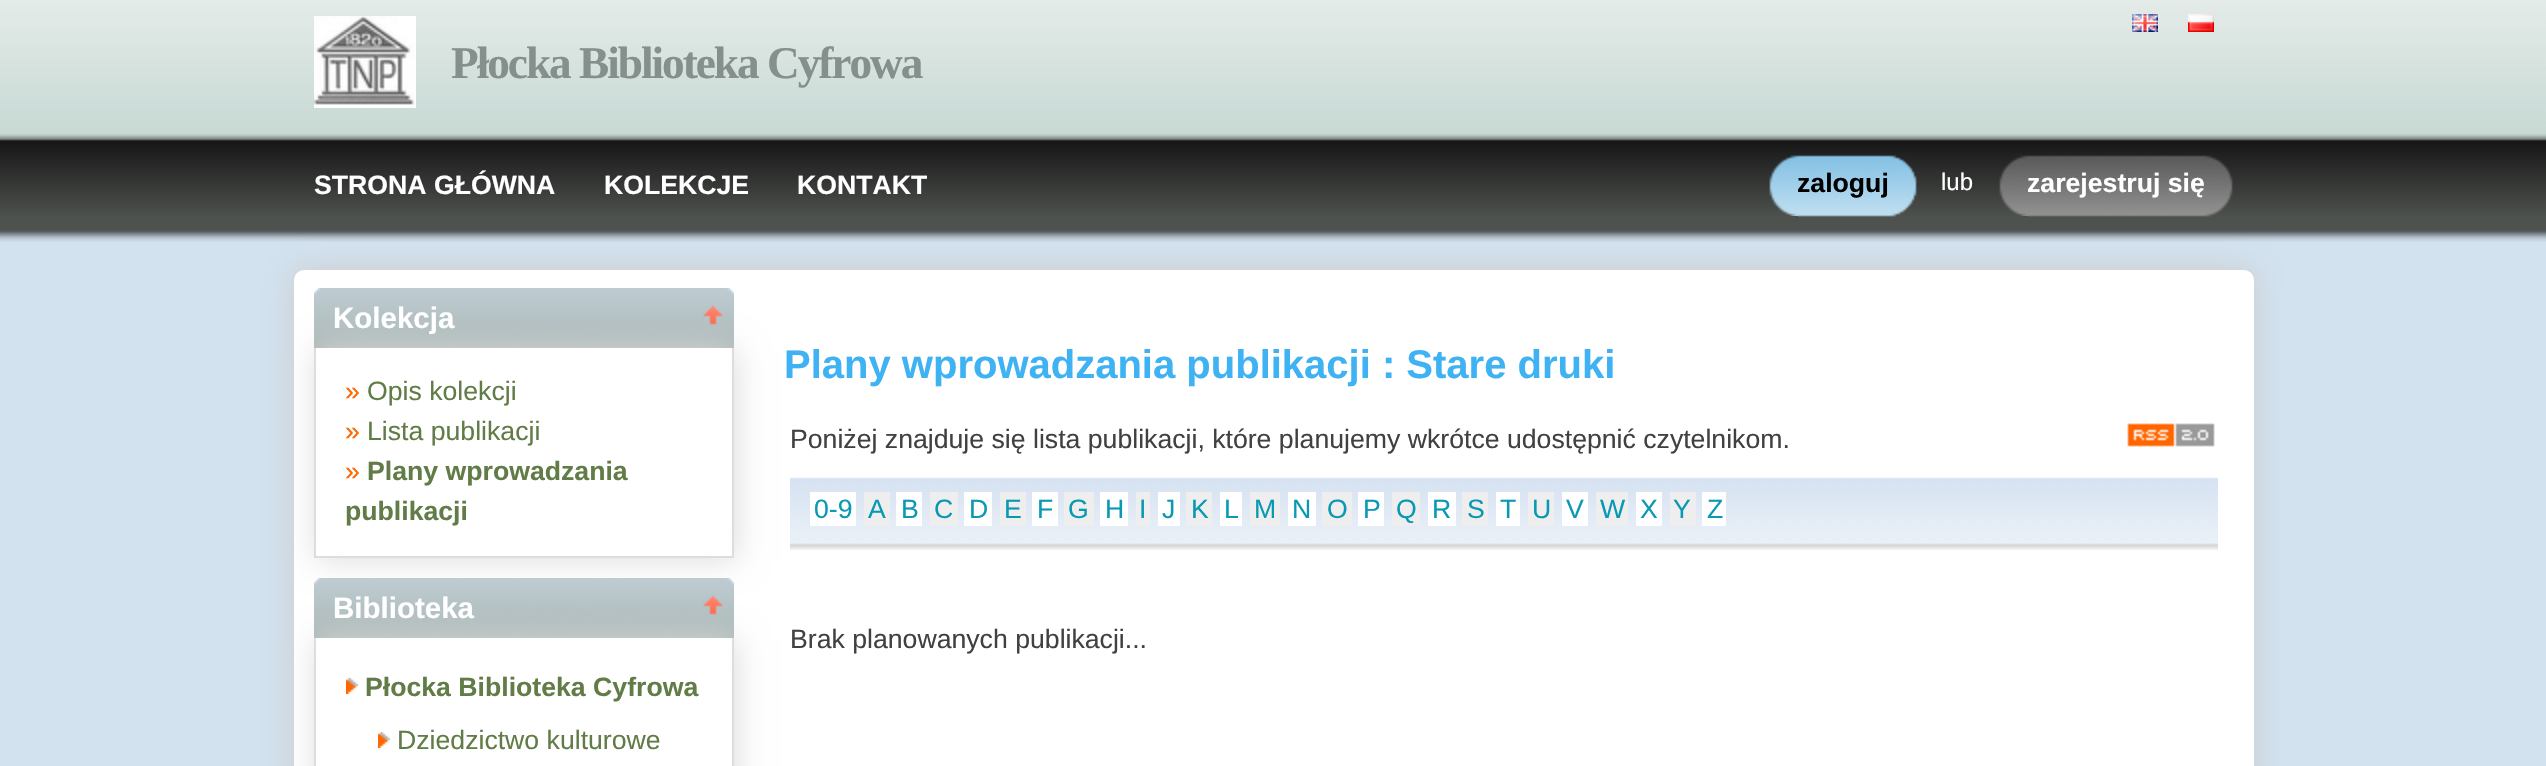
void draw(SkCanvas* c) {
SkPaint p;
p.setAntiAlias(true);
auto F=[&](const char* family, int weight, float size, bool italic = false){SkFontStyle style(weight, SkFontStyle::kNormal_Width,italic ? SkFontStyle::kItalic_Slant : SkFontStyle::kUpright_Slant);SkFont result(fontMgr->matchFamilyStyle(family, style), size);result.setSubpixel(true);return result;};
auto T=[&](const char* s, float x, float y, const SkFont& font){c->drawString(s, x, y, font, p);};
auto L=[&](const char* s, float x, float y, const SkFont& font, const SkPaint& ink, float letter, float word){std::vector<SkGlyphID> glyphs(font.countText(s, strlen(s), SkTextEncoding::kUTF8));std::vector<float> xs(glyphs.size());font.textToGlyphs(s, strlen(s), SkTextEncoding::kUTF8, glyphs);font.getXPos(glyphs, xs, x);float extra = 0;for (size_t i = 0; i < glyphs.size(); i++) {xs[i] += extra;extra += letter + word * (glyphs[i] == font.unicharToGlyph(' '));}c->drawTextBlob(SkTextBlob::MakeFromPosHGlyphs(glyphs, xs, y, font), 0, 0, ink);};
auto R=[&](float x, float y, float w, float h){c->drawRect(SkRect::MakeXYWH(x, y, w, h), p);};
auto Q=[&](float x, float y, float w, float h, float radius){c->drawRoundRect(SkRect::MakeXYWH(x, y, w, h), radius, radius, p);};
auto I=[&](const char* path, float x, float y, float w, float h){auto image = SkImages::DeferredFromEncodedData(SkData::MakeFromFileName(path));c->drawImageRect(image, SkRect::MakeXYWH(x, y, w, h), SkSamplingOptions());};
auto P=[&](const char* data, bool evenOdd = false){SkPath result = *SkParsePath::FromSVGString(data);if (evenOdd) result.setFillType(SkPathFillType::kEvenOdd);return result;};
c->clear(0xffd2e2ef);
I("1.png",0,0,2546,140);
I("2.png",314,16,102,92);
auto f1 = F("Liberation Serif",700,45.25);
p.setColor(0xff858f8c);
L("Płocka Biblioteka Cyfrowa",451,78,f1,p,-2,0);
I("3.png",2132,14,26,18);
I("4.png",2188,14,26,18);
p.setColor(0xffcccccc);
p.setMaskFilter(SkMaskFilter::MakeBlur(kNormal_SkBlurStyle, 15));
c->drawRoundRect(SkRect::MakeXYWH(294,270,1960,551),10,10,p);
p.setMaskFilter(nullptr);
I("5.png",0,140,2546,102);
auto f2 = F("Liberation Sans",700,26.65);
p.setColor(0xffffffff);
T("STRONA GŁÓWNA",314,194,f2);
T("KOLEKCJE",604,194,f2);
T("KONTAKT",797,194,f2);
I("6.png",1798,155,119,62);
I("7.png",1769,155,29,61);
p.setColor(0xff000000);
T("zaloguj",1797,192,f2);
auto f3 = F("Liberation Sans",400,24);
p.setColor(0xffffffff);
T("lub",1941,190,f3);
I("8.png",2028,155,205,62);
I("9.png",1999,155,29,61);
T("zarejestruj się",2027,192,f2);
Q(294,270,1960,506,10);
I("10.png",314,288,420,60);
c->save();
c->clipPath(P("M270 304h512v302h-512zm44 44h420v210h-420z",true),true);
p.setColor(0xffdddddd);
p.setMaskFilter(SkMaskFilter::MakeBlur(kNormal_SkBlurStyle, 15));
c->drawRect(SkRect::MakeXYWH(316,350,420,210),p);
p.setMaskFilter(nullptr);
c->restore();
auto f4 = F("Liberation Sans",700,29.5);
p.setColor(0xffffffff);
T("Kolekcja",333,328,f4);
I("11.png",703,305,20,20);
p.setColor(0xffdddddd);
R(732,348,2,210);
R(314,556,420,2);
R(314,348,2,210);
auto f5 = F("Liberation Sans",400,26.65);
p.setColor(0xffff6600);
T("»",345,400,f5);
p.setColor(0xff617c47);
T("Opis kolekcji",367,400,f5);
p.setColor(0xffff6600);
T("»",345,440,f5);
p.setColor(0xff617c47);
T("Lista publikacji",367,440,f5);
p.setColor(0xffff6600);
T("»",345,480,f5);
p.setColor(0xff617c47);
T("Plany wprowadzania",367,480,f2);
T("publikacji",345,520,f2);
I("12.png",314,578,420,60);
c->save();
c->clipPath(P("M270 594h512v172h-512zm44 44h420v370h-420z",true),true);
p.setColor(0xffdddddd);
p.setMaskFilter(SkMaskFilter::MakeBlur(kNormal_SkBlurStyle, 15));
c->drawRect(SkRect::MakeXYWH(316,640,420,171),p);
p.setMaskFilter(nullptr);
c->restore();
p.setColor(0xffffffff);
T("Biblioteka",333,618,f4);
I("11.png",703,595,20,20);
p.setColor(0xffdddddd);
R(732,638,2,128);
R(314,638,2,128);
I("13.png",346,678,12,16);
p.setColor(0xff617c47);
T("Płocka Biblioteka Cyfrowa",365,696,f2);
I("14.png",378,732,12,16);
T("Dziedzictwo kulturowe",397,749,f5);
auto f6 = F("Liberation Sans",700,40);
p.setColor(0xff3fb2f4);
T("Plany wprowadzania publikacji : Stare druki",784,378,f6);
p.setColor(0xff414141);
T("Poniżej znajduje się lista publikacji, które planujemy wkrótce udostępnić czytelnikom.",790,448,f5);
I("15.png",2127,423,88,24);
I("16.png",790,477,1428,73);
p.setColor(0xffffffff);
R(810,492,46,34);
p.setColor(0xff0999b3);
T("0-9",814,518,f5);
p.setColor(0xffeeeeee);
R(864,492,26,34);
p.setColor(0xff0999b3);
T("A",868,518,f5);
p.setColor(0xffffffff);
R(896,492,26,34);
p.setColor(0xff0999b3);
T("B",901,518,f5);
p.setColor(0xffeeeeee);
R(930,492,28,34);
p.setColor(0xff0999b3);
T("C",934,518,f5);
p.setColor(0xffffffff);
R(964,492,28,34);
p.setColor(0xff0999b3);
T("D",969,518,f5);
p.setColor(0xffeeeeee);
R(1000,492,26,34);
p.setColor(0xff0999b3);
T("E",1004,518,f5);
p.setColor(0xffffffff);
R(1032,492,26,34);
p.setColor(0xff0999b3);
T("F",1037,518,f5);
p.setColor(0xffeeeeee);
R(1064,492,30,34);
p.setColor(0xff0999b3);
T("G",1068,518,f5);
p.setColor(0xffffffff);
R(1100,492,28,34);
p.setColor(0xff0999b3);
T("H",1105,518,f5);
p.setColor(0xffeeeeee);
R(1136,492,14,34);
p.setColor(0xff0999b3);
T("I",1139,518,f5);
p.setColor(0xffffffff);
R(1158,492,22,34);
p.setColor(0xff0999b3);
T("J",1162,518,f5);
p.setColor(0xffeeeeee);
R(1186,492,26,34);
p.setColor(0xff0999b3);
T("K",1191,518,f5);
p.setColor(0xffffffff);
R(1220,492,22,34);
p.setColor(0xff0999b3);
T("L",1224,518,f5);
p.setColor(0xffeeeeee);
R(1250,492,30,34);
p.setColor(0xff0999b3);
T("M",1254,518,f5);
p.setColor(0xffffffff);
R(1288,492,28,34);
p.setColor(0xff0999b3);
T("N",1292,518,f5);
p.setColor(0xffeeeeee);
R(1322,492,30,34);
p.setColor(0xff0999b3);
T("O",1327,518,f5);
p.setColor(0xffffffff);
R(1358,492,26,34);
p.setColor(0xff0999b3);
T("P",1363,518,f5);
p.setColor(0xffeeeeee);
R(1392,492,28,34);
p.setColor(0xff0999b3);
T("Q",1396,518,f5);
p.setColor(0xffffffff);
R(1428,492,28,34);
p.setColor(0xff0999b3);
T("R",1432,518,f5);
p.setColor(0xffeeeeee);
R(1462,492,26,34);
p.setColor(0xff0999b3);
T("S",1467,518,f5);
p.setColor(0xffffffff);
R(1496,492,24,34);
p.setColor(0xff0999b3);
T("T",1500,518,f5);
p.setColor(0xffeeeeee);
R(1528,492,26,34);
p.setColor(0xff0999b3);
T("U",1532,518,f5);
p.setColor(0xffffffff);
R(1562,492,26,34);
p.setColor(0xff0999b3);
T("V",1566,518,f5);
p.setColor(0xffeeeeee);
R(1596,492,32,34);
p.setColor(0xff0999b3);
T("W",1600,518,f5);
p.setColor(0xffffffff);
R(1636,492,26,34);
p.setColor(0xff0999b3);
T("X",1640,518,f5);
p.setColor(0xffeeeeee);
R(1670,492,26,34);
p.setColor(0xff0999b3);
T("Y",1673,518,f5);
p.setColor(0xffffffff);
R(1702,492,24,34);
p.setColor(0xff0999b3);
T("Z",1707,518,f5);
p.setColor(0xff414141);
T("Brak planowanych publikacji...",790,648,f5);
}
